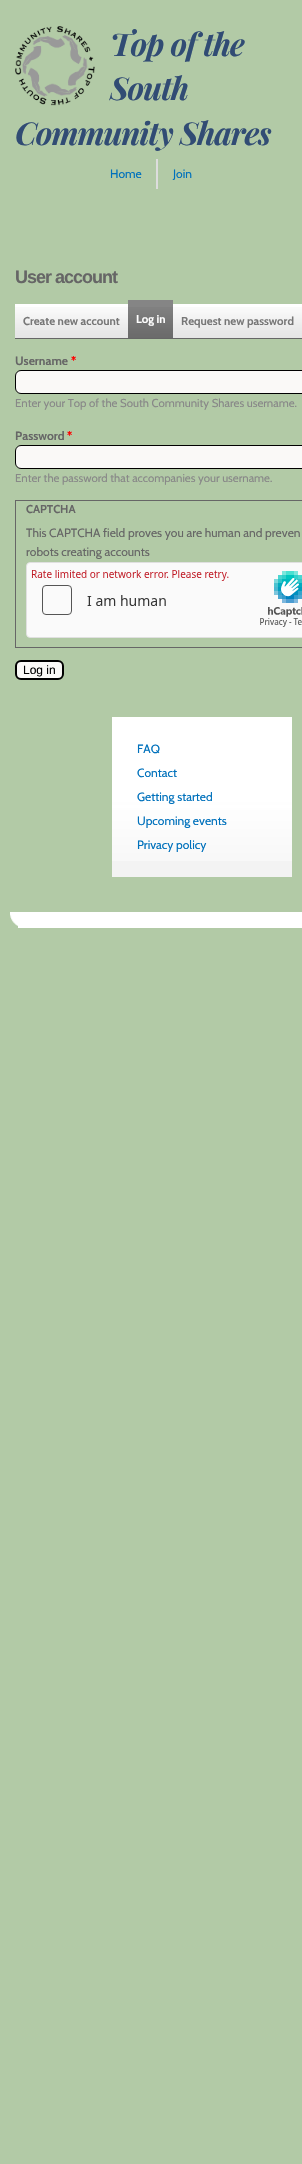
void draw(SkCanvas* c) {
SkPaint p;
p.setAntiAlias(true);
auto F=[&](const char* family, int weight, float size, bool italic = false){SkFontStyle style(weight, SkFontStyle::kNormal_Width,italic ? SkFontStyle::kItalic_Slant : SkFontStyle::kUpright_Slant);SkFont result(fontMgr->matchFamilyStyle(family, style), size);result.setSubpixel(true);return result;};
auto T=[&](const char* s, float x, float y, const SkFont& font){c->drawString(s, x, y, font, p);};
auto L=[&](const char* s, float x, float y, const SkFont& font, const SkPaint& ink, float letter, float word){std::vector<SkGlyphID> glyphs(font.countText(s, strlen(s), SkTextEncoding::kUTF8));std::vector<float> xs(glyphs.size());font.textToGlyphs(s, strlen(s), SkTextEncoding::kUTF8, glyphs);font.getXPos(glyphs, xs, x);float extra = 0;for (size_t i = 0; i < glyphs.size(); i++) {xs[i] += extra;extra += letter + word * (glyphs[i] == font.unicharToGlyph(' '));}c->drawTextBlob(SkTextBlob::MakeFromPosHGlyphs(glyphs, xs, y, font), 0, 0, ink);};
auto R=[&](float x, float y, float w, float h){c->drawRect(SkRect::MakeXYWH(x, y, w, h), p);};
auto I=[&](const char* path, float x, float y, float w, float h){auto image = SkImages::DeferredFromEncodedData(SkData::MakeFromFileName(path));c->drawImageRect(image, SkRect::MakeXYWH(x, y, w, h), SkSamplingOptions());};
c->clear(0xffb2caa6);
I("1.png",15,26,80,80);
auto f1 = F("Playfair Display",700,31.5,true);
p.setColor(0xff314c74);
L("Top of the",110,56,f1,p,-1,0);
L("South",110,100,f1,p,-1,0);
L("Community Shares",15,145,f1,p,-1,0);
auto f2 = F("Cabin",400,12);
p.setColor(0xff0071bc);
T("Home",110,178,f2);
p.setColor(0xffdddddd);
R(156,159,2,30);
p.setColor(0xff0071bc);
T("Join",173,178,f2);
auto f3 = F("Liberation Sans",700,18);
p.setColor(0xff666666);
L("User account",15,283,f3,p,-1,0);
R(15,338,287,1);
p.setColor(0xffffffff);
R(15,304,113,3);
I("2.png",15,307,113,31);
auto f4 = F("Cabin",700,11.4);
p.setColor(0xff777777);
T("Create new account",23,325,f4);
p.setColor(0xff858585);
R(128,300,45,7);
I("3.png",128,307,45,31);
p.setColor(0xffffffff);
T("Log in",136,323,f4);
R(173,304,129,3);
I("4.png",173,307,129,31);
p.setColor(0xff777777);
T("Request new password",181,325,f4);
auto f5 = F("Cabin",700,12);
p.setColor(0xff666666);
T("Username",15,365,f5);
p.setColor(0xffff0000);
T("*",71,365,f5);
p.setColor(0xfffaf9f7);
c->drawRoundRect(SkRect::MakeXYWH(15.5,370.5,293,23),5.5,5.5,p);
p.setStroke(true);
p.setStrokeWidth(1);
p.setColor(0xff000000);
c->drawRoundRect(SkRect::MakeXYWH(15.5,370.5,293,23),5.5,5.5,p);
auto f6 = F("Cabin",400,11.4);
p.setStroke(false);
p.setColor(0xff888888);
T("Enter your Top of the South Community Shares username.",15,407,f6);
p.setColor(0xff666666);
T("Password",15,440,f5);
p.setColor(0xffff0000);
T("*",67,440,f5);
p.setColor(0xfffaf9f7);
c->drawRoundRect(SkRect::MakeXYWH(15.5,445.5,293,23),5.5,5.5,p);
p.setStroke(true);
p.setColor(0xff000000);
c->drawRoundRect(SkRect::MakeXYWH(15.5,445.5,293,23),5.5,5.5,p);
p.setStroke(false);
p.setColor(0xff888888);
T("Enter the password that accompanies your username.",15,482,f6);
p.setStroke(true);
p.setColor(0xff666666);
c->drawRect(SkRect::MakeXYWH(15.5,500.5,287,147),p);
p.setStroke(false);
T("CAPTCHA",26,513,f4);
T("This CAPTCHA field proves you are human and preven",26,537,f2);
T("robots creating accounts",26,556,f2);
I("5.png",26,562,276,76);
p.setColor(0xfffaf9f7);
c->drawRoundRect(SkRect::MakeXYWH(16,661,47,18),5,5,p);
p.setStroke(true);
p.setStrokeWidth(2);
p.setColor(0xff000000);
c->drawRoundRect(SkRect::MakeXYWH(16,661,47,18),5,5,p);
auto f7 = F("Liberation Sans",400,12);
p.setStroke(false);
T("Log in",23,674,f7);
p.setColor(0xfff3f3f3);
R(112,861,180,16);
I("6.png",112,717,180,144);
p.setColor(0xff0071bc);
T("FAQ",137,753,f2);
T("Contact",137,777,f2);
T("Getting started",137,801,f2);
T("Upcoming events",137,825,f2);
T("Privacy policy",137,849,f2);
I("7.png",10,912,8,14);
p.setColor(0xffffffff);
R(18,912,284,16);
}
